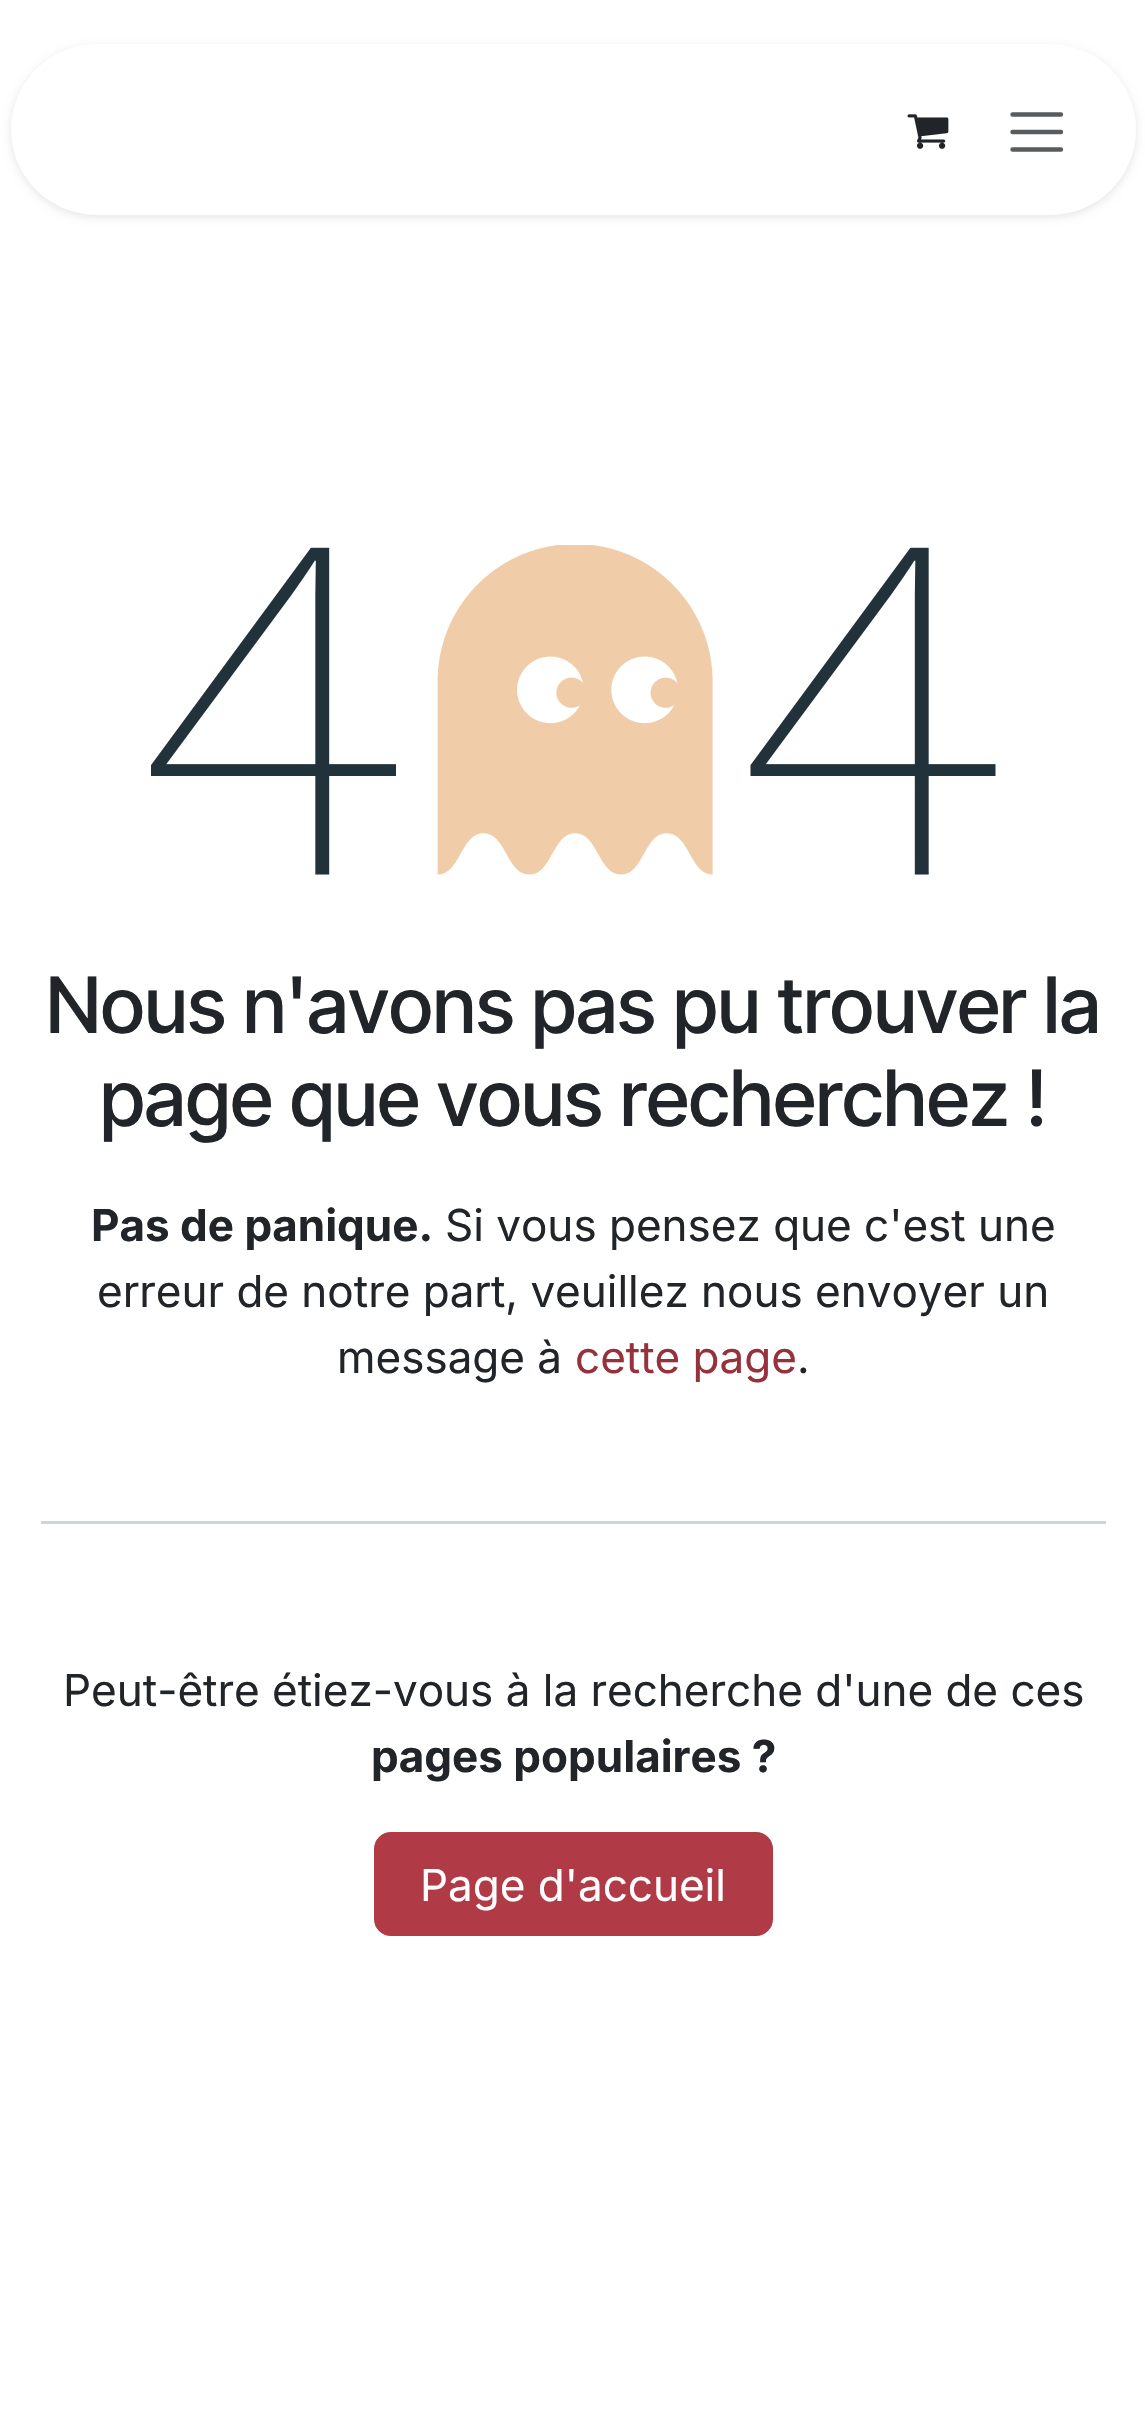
void draw(SkCanvas* c) {
SkPaint p;
p.setAntiAlias(true);
auto F=[&](const char* family, int weight, float size, bool italic = false){SkFontStyle style(weight, SkFontStyle::kNormal_Width,italic ? SkFontStyle::kItalic_Slant : SkFontStyle::kUpright_Slant);SkFont result(fontMgr->matchFamilyStyle(family, style), size);result.setSubpixel(true);return result;};
auto T=[&](const char* s, float x, float y, const SkFont& font){c->drawString(s, x, y, font, p);};
auto R=[&](float x, float y, float w, float h){c->drawRect(SkRect::MakeXYWH(x, y, w, h), p);};
auto Q=[&](float x, float y, float w, float h, float radius){c->drawRoundRect(SkRect::MakeXYWH(x, y, w, h), radius, radius, p);};
auto I=[&](const char* path, float x, float y, float w, float h){auto image = SkImages::DeferredFromEncodedData(SkData::MakeFromFileName(path));c->drawImageRect(image, SkRect::MakeXYWH(x, y, w, h), SkSamplingOptions());};
auto P=[&](const char* data, bool evenOdd = false){SkPath result = *SkParsePath::FromSVGString(data);if (evenOdd) result.setFillType(SkPathFillType::kEvenOdd);return result;};
c->clear(0xffffffff);
p.setColor(0x1a000000);
p.setMaskFilter(SkMaskFilter::MakeBlur(kNormal_SkBlurStyle, 4));
c->drawRoundRect(SkRect::MakeXYWH(11,47,1125,170),85,85,p);
p.setMaskFilter(nullptr);
p.setColor(0xffffffff);
Q(11,44,1125,171,85.5);
I("1.png",907,114,42,35);
p.setStroke(true);
p.setStrokeWidth(4.4);
p.setStrokeCap(SkPaint::kRound_Cap);
p.setColor(0xff595c5f);
c->drawPath(P("M1012.5 114.5h48.5m-48.5 17.5h48.5m-48.5 17.5h48.5"),p);
I("2.png",151,545,845,330);
auto f1 = F("Inter Tight",500,77.75);
p.setStroke(false);
p.setColor(0xff212529);
T("Nous n'avons pas pu trouver la",46,1033,f1);
T("page que vous recherchez !",100,1126,f1);
auto f2 = F("Inter",700,44);
T("Pas de panique.",91,1241,f2);
auto f3 = F("Inter",400,44);
T("Si vous pensez que c'est une",445,1241,f3);
T("erreur de notre part, veuillez nous envoyer un",97,1307,f3);
T("message à",337,1373,f3);
p.setColor(0xff95323b);
T("cette page",575,1373,f3);
p.setColor(0xff212529);
T(".",797,1373,f3);
p.setColor(0xffced4da);
R(41,1521,1065,3);
p.setColor(0xff212529);
T("Peut-être étiez-vous à la recherche d'une de ces",63,1706,f3);
T("pages populaires ?",371,1772,f2);
p.setColor(0xffb03b46);
c->drawRoundRect(SkRect::MakeXYWH(375.5,1833.5,396,101),15.5,15.5,p);
p.setStroke(true);
p.setStrokeWidth(3);
p.setStrokeCap(SkPaint::kButt_Cap);
c->drawRoundRect(SkRect::MakeXYWH(375.5,1833.5,396,101),15.5,15.5,p);
p.setStroke(false);
p.setColor(0xffffffff);
T("Page d'accueil",420,1901,f3);
}
